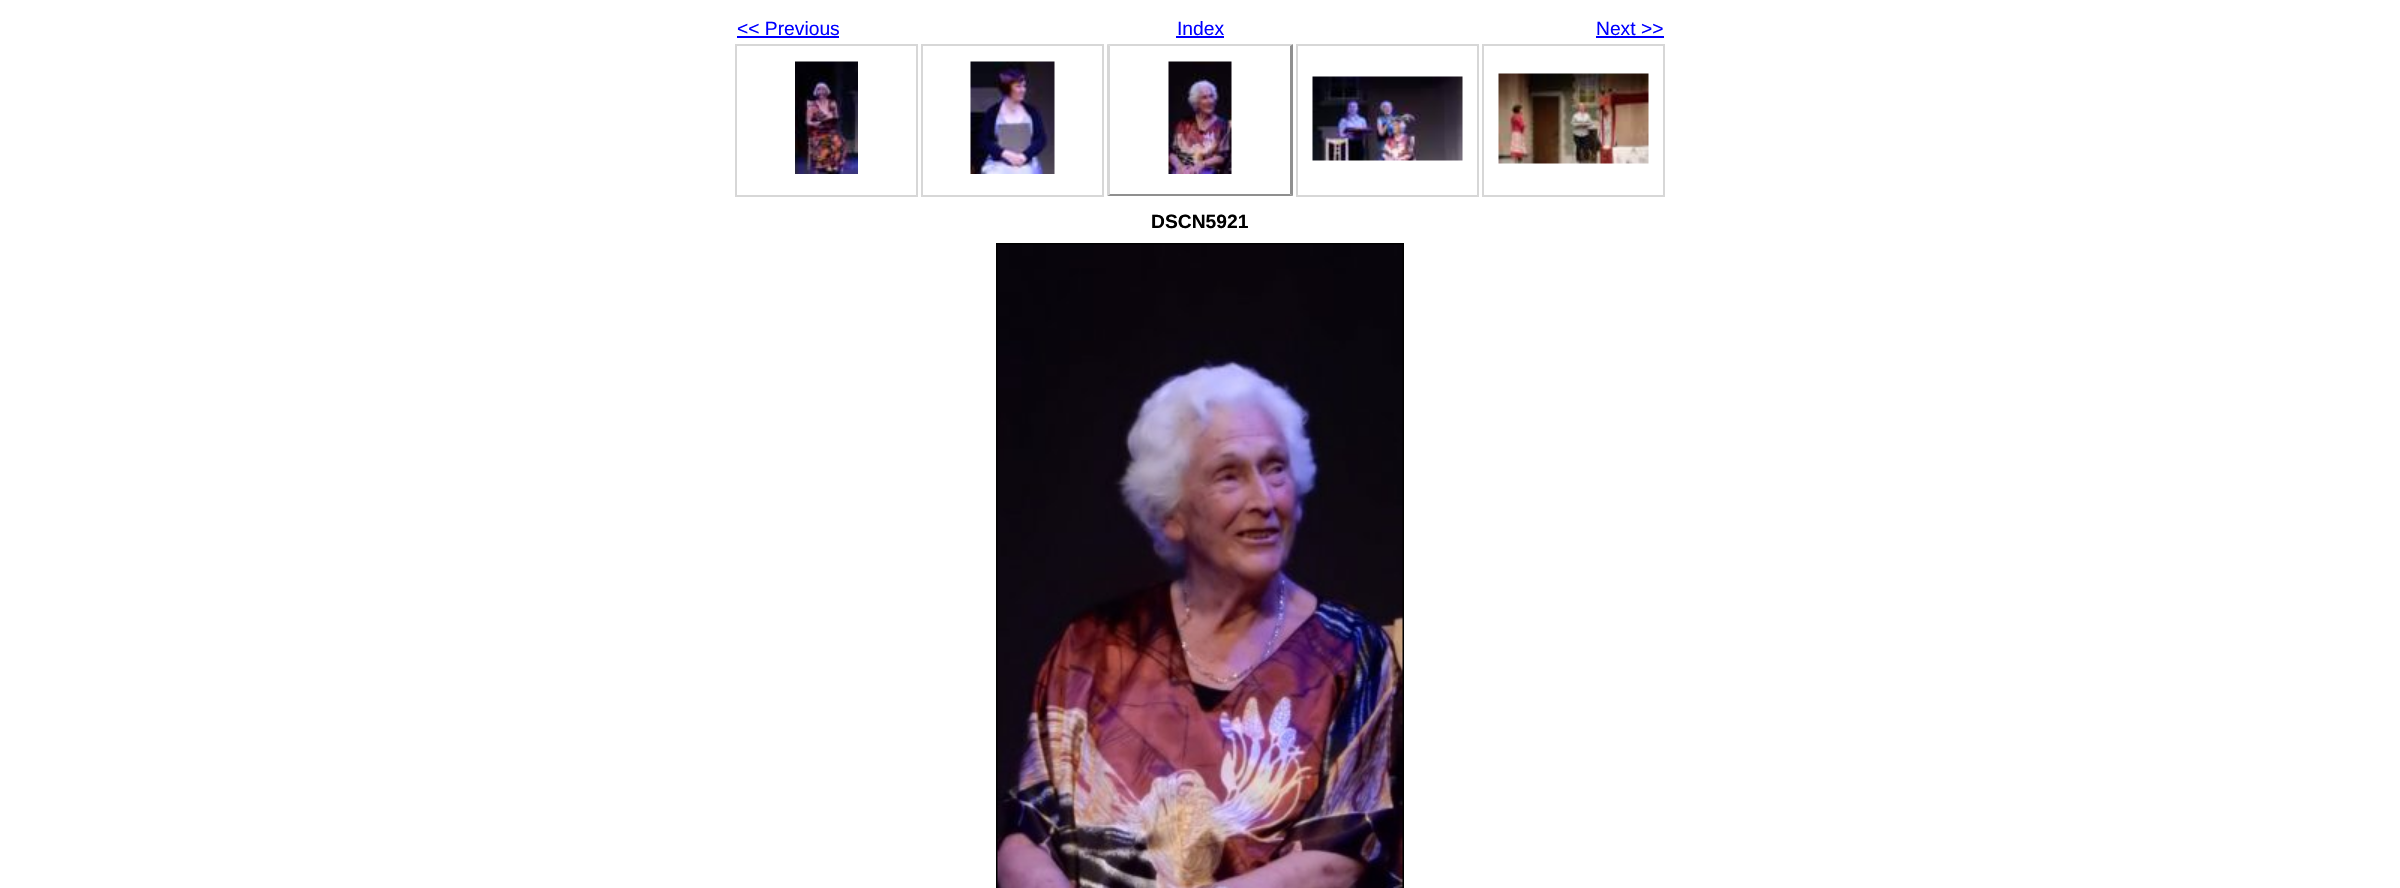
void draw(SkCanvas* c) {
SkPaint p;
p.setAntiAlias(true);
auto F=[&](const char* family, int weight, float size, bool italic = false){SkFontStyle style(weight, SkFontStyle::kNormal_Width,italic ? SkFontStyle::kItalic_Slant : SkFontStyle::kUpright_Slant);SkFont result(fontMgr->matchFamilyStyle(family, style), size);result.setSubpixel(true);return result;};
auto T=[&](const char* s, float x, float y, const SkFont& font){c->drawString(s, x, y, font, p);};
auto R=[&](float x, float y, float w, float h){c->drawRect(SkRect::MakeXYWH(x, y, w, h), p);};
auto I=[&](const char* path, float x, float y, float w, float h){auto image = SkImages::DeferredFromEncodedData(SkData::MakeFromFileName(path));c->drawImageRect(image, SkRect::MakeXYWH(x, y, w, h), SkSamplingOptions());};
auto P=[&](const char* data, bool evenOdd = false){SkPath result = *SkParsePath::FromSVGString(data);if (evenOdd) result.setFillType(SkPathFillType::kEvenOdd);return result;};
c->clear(0xffffffff);
auto f1 = F("Liberation Sans",400,19.25);
p.setColor(0xff0000ff);
T("<< Previous",737,35,f1);
R(737,36,102,2);
T("Index",1177,35,f1);
R(1176,36,48,2);
T("Next >>",1596,35,f1);
R(1596,36,68,2);
p.setStroke(true);
p.setStrokeWidth(2);
p.setColor(0xffd7d7d7);
c->drawRect(SkRect::MakeXYWH(736,45,181,151),p);
I("1.png",795,61,63,113);
c->drawRect(SkRect::MakeXYWH(922,45,181,151),p);
I("2.png",970,61,85,113);
p.setStroke(false);
c->drawPath(P("M1107 44h186l-3 2h-180z"),p);
p.setColor(0xff8f8f8f);
c->drawPath(P("M1293 44v152l-3-2v-148z"),p);
c->drawPath(P("M1293 196h-186l3-2h180z"),p);
p.setColor(0xffd7d7d7);
c->drawPath(P("M1107 196v-152l3 2v148z"),p);
I("3.png",1168,61,64,113);
p.setStroke(true);
c->drawRect(SkRect::MakeXYWH(1297,45,181,151),p);
I("4.png",1312,76,151,85);
c->drawRect(SkRect::MakeXYWH(1483,45,181,151),p);
I("5.png",1498,73,151,91);
auto f2 = F("Liberation Sans",700,19.25);
p.setStroke(false);
p.setColor(0xff000000);
T("DSCN5921",1151,228,f2);
p.setStroke(true);
c->drawRect(SkRect::MakeXYWH(997,244,406,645),p);
I("6.png",997,244,406,644);
}
